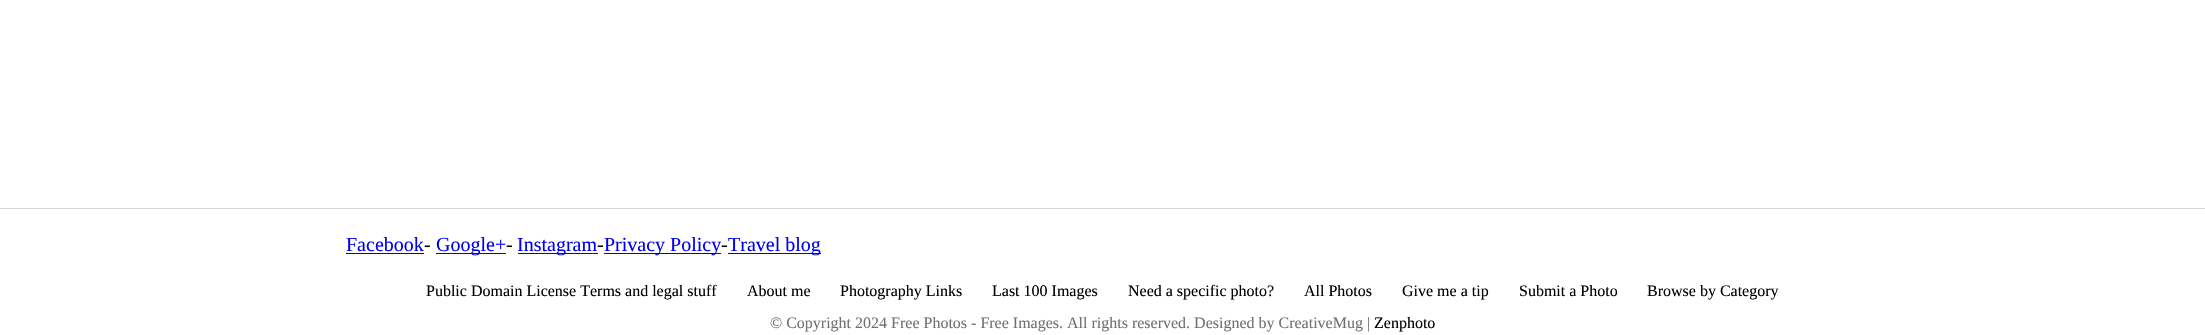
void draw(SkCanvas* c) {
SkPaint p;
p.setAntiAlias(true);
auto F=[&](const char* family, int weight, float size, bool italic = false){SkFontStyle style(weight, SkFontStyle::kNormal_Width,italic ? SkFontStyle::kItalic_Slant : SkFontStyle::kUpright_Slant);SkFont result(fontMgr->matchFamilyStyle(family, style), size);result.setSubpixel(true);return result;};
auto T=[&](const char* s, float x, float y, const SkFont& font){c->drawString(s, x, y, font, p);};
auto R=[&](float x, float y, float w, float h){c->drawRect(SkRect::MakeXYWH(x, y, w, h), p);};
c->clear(0xffffffff);
p.setColor(0xffd5d5d5);
R(0,208,2205,1);
auto f1 = F("Liberation Serif",400,20);
p.setColor(0xff0000ee);
T("Facebook",346,251,f1);
R(346,253,78,1);
p.setColor(0xff000000);
T("-",424,251,f1);
p.setColor(0xff0000ee);
R(436,253,70,1);
T("Google+",436,251,f1);
p.setColor(0xff000000);
T("-",506,251,f1);
p.setColor(0xff0000ee);
R(518,253,80,1);
T("Instagram",517,251,f1);
p.setColor(0xff000000);
T("-",597,251,f1);
p.setColor(0xff0000ee);
R(604,253,117,1);
T("Privacy Policy",604,251,f1);
p.setColor(0xff000000);
T("-",721,251,f1);
p.setColor(0xff0000ee);
R(728,253,93,1);
T("Travel blog",728,251,f1);
auto f2 = F("Liberation Serif",400,16);
p.setColor(0xff000000);
T("Public Domain License Terms and legal stuff",426,296,f2);
T("About me",747,296,f2);
T("Photography Links",840,296,f2);
T("Last 100 Images",992,296,f2);
T("Need a specific photo?",1128,296,f2);
T("All Photos",1304,296,f2);
T("Give me a tip",1402,296,f2);
T("Submit a Photo",1519,296,f2);
T("Browse by Category",1647,296,f2);
p.setColor(0xff707070);
T("© Copyright 2024 Free Photos - Free Images. All rights reserved. Designed by CreativeMug |",770,328,f2);
p.setColor(0xff000000);
T("Zenphoto",1374,328,f2);
}
